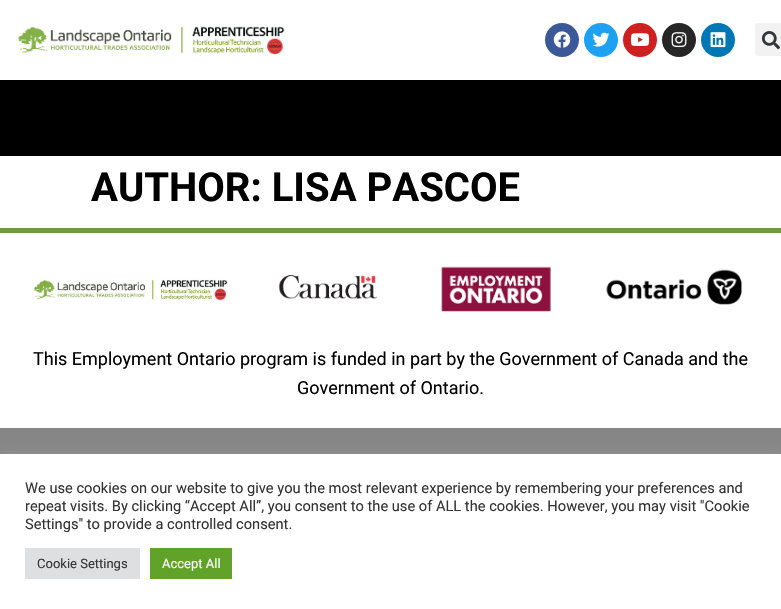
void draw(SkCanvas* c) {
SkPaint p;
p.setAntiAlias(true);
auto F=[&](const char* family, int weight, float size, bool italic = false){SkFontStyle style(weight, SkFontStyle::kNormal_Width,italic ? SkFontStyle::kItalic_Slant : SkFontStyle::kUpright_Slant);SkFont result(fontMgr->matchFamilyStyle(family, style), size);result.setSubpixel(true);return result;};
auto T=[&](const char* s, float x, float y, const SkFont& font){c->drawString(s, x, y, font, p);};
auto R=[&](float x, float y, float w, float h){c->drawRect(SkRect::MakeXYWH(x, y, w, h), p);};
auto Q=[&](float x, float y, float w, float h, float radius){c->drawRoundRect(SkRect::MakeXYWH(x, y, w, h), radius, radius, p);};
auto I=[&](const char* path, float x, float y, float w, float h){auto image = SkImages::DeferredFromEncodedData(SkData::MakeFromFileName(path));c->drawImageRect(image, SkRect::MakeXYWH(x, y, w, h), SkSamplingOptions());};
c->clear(0xffffffff);
I("1.png",17,26,268,29);
p.setColor(0xff3b5998);
c->drawCircle(562,40,17,p);
I("2.png",553,31,18,17);
p.setColor(0xff1da1f2);
c->drawCircle(601,40,17,p);
I("3.png",592,32,18,15);
p.setColor(0xffcd201f);
c->drawCircle(640,40,17,p);
I("4.png",630,33,20,13);
p.setColor(0xff262626);
c->drawCircle(679,40,17,p);
I("5.png",671,32,16,16);
p.setColor(0xff0077b5);
c->drawCircle(718,40,17,p);
I("6.png",710,32,16,16);
p.setColor(0xfff2f2f2);
Q(755,23,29,33,3);
I("7.png",761,31,19,19);
p.setColor(0xff000000);
R(0,80,781,76);
auto f1 = F("Roboto",700,40);
T("AUTHOR: LISA PASCOE",91,201,f1);
p.setColor(0xff6e9a43);
R(0,228,781,5);
I("8.png",33,278,196,23);
I("9.png",278,275,99,24);
I("10.png",441,266,110,46);
I("11.png",606,269,136,36);
auto f2 = F("Roboto",400,18);
p.setColor(0xff000000);
T("This Employment Ontario program is funded in part by the Government of Canada and the",33,365,f2);
T("Government of Ontario.",297,394,f2);
p.setColor(0xff868686);
R(0,428,781,26);
p.setColor(0x4dacabab);
p.setMaskFilter(SkMaskFilter::MakeBlur(kNormal_SkBlurStyle, 5));
c->drawRect(SkRect::MakeXYWH(0,453,781,155),p);
p.setMaskFilter(nullptr);
p.setColor(0xffffffff);
R(0,454,781,155);
auto f3 = F("Roboto",400,14.65);
p.setColor(0xff333333);
T("We use cookies on our website to give you the most relevant experience by remembering your preferences and",25,493,f3);
T("repeat visits. By clicking “Accept All”, you consent to the use of ALL the cookies. However, you may visit \"Cookie",25,511,f3);
T("Settings\" to provide a controlled consent.",25,529,f3);
p.setColor(0xffdedfe0);
R(25,548,115,31);
auto f4 = F("Roboto",400,13);
p.setColor(0xff333333);
T("Cookie Settings",37,568,f4);
p.setColor(0xff61a229);
R(150,548,82,31);
p.setColor(0xffffffff);
T("Accept All",162,568,f4);
}
